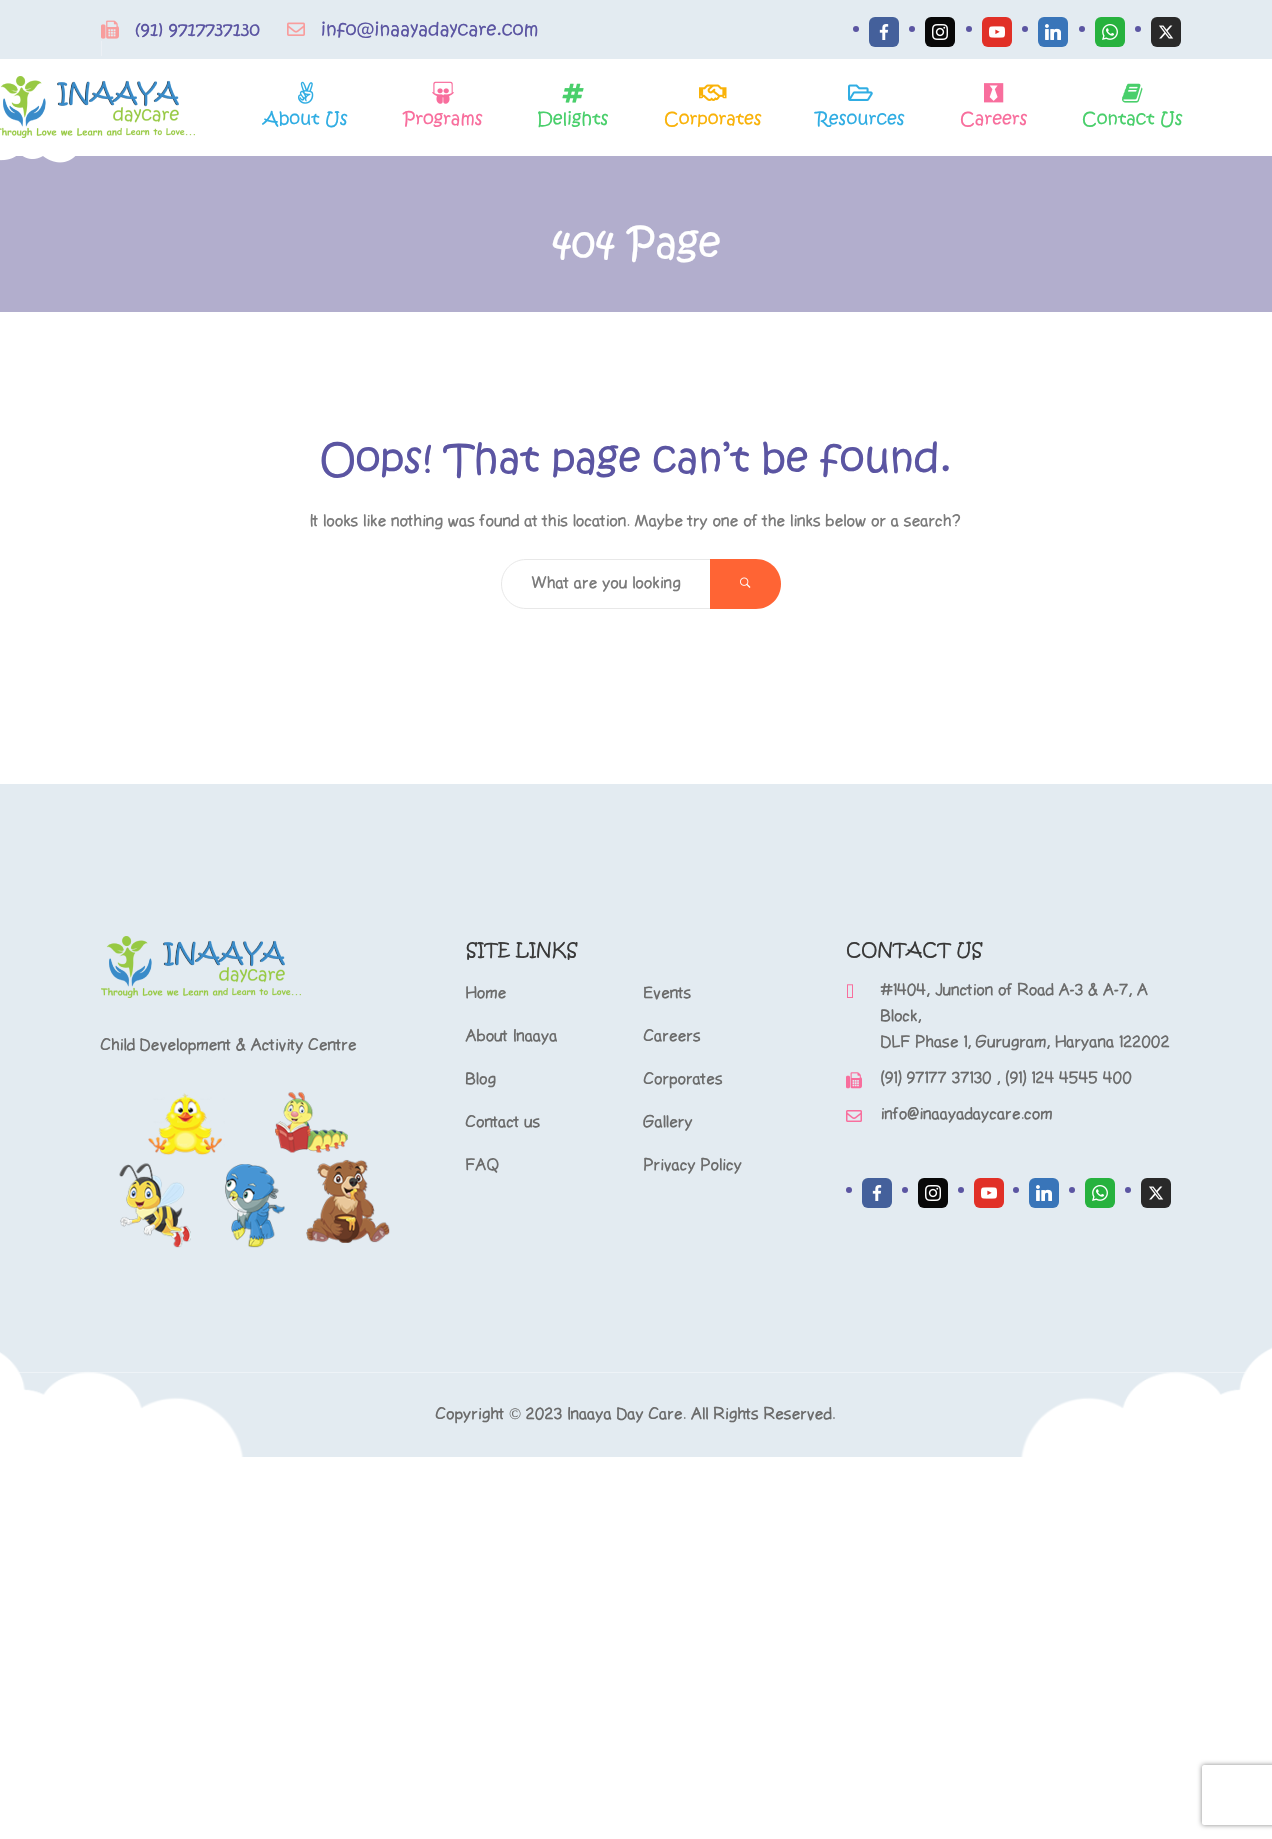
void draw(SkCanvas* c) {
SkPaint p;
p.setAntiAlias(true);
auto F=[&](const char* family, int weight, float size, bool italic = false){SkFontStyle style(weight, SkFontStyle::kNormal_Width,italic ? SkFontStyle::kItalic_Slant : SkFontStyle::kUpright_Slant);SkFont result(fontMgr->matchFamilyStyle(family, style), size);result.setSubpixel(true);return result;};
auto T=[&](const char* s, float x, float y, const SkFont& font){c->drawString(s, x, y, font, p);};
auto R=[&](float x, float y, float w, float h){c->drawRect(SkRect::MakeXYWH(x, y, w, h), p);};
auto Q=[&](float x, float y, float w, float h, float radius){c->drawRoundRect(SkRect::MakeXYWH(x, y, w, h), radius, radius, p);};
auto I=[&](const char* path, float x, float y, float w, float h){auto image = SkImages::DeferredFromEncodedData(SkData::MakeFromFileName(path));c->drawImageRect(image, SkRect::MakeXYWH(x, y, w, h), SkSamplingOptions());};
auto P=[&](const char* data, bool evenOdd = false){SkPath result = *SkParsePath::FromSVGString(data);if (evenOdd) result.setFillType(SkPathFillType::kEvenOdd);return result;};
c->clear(0xffffffff);
p.setColor(0xffe3ebf1);
R(0,0,1272,59);
I("1.png",101,20,18,19);
auto f1 = F("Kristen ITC",400,18);
p.setColor(0xff5b55a2);
T("(91) 9717737130",135,36,f1);
I("2.png",287,22,18,14);
T("info@inaayadaycare.com",321,36,f1);
p.setColor(0xffecf0f5);
R(101,41,1,15);
p.setColor(0xff5b55a2);
c->drawCircle(856,29,3,p);
p.setColor(0xff44609b);
Q(869,17,30,30,6);
I("3.png",879,24,10,16);
p.setColor(0xff5b55a2);
c->drawCircle(912,29,3,p);
p.setColor(0xff080808);
Q(925,17,30,30,6);
I("4.png",932,24,16,16);
p.setColor(0xff5b55a2);
c->drawCircle(969,29,3,p);
p.setColor(0xffe13027);
Q(982,17,30,30,6);
I("5.png",989,26,16,12);
p.setColor(0xff5b55a2);
c->drawCircle(1025,29,3,p);
p.setColor(0xff3975b9);
Q(1038,17,30,30,6);
I("6.png",1045,24,16,16);
p.setColor(0xff5b55a2);
c->drawCircle(1082,29,3,p);
p.setColor(0xff27b23e);
Q(1095,17,30,30,6);
I("7.png",1102,24,16,16);
p.setColor(0xff5b55a2);
c->drawCircle(1138,29,3,p);
p.setColor(0xff292929);
Q(1151,17,30,30,6);
I("8.png",1159,25,15,14);
p.setColor(0xffb2aecd);
R(0,156,1272,156);
I("9.png",0,156,76,7);
I("10.png",0,76,195,62);
I("11.png",298,81,16,23);
auto f2 = F("Kristen ITC",400,17.5);
p.setColor(0xff30ade3);
T("About Us",263,125,f2);
I("12.png",432,81,22,23);
p.setColor(0xfff86e9d);
T("Programs",403,125,f2);
I("13.png",562,83,22,20);
p.setColor(0xff49cf6b);
T("Delights",537,125,f2);
I("14.png",699,84,28,17);
p.setColor(0xfff9b209);
T("Corporates",664,125,f2);
I("15.png",848,84,25,17);
p.setColor(0xff30ade3);
T("Resources",816,125,f2);
I("16.png",984,83,20,20);
p.setColor(0xfff86e9d);
T("Careers",960,125,f2);
I("17.png",1122,83,21,20);
p.setColor(0xff49cf6b);
T("Contact Us",1082,125,f2);
auto f3 = F("Kristen ITC",400,40);
p.setColor(0xffffffff);
T("404 Page",552,258,f3);
p.setColor(0xff5b55a2);
T("Oops! That page can’t be found.",320,473,f3);
auto f4 = F("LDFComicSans",500,16);
p.setColor(0xff7b7b7b);
T("It looks like nothing was found at this location. Maybe try one of the links below or a search?",310,526,f4);
p.setStroke(true);
p.setStrokeWidth(1);
p.setColor(0xffe8e8e8);
c->drawPath(P("M526 559.5h187.5v49h-187.5c-13.5 0-24.5-11-24.5-24.5c0-13.5 11-24.5 24.5-24.5z"),p);
p.setStroke(false);
p.setColor(0xff7b7b7b);
T("What are you looking",532,588,f4);
p.setColor(0xffff6434);
c->drawPath(P("M710 559h46c14 0 25 11 25 25c0 14-11 25-25 25h-46z"),p);
I("18.png",740,577,11,11);
p.setColor(0xffe3ebf1);
R(0,784,1272,673);
I("19.png",0,1347,1272,110);
I("20.png",101,936,200,62);
p.setColor(0xff6b6b6b);
T("Child Development & Activity Centre",101,1050,f4);
I("21.png",119,1092,271,156);
p.setColor(0xff393939);
T("SITE LINKS",466,956,f1);
p.setColor(0xff6b6b6b);
T("Home",466,998,f4);
T("Events",644,998,f4);
T("About Inaaya",466,1041,f4);
T("Careers",644,1041,f4);
T("Blog",466,1084,f4);
T("Corporates",644,1084,f4);
T("Contact us",466,1127,f4);
T("Gallery",644,1127,f4);
T("FAQ",466,1170,f4);
T("Privacy Policy",644,1170,f4);
p.setColor(0xff393939);
T("CONTACT US",846,956,f1);
I("22.png",847,984,6,14);
p.setColor(0xff6b6b6b);
T("#1404, Junction of Road A-3 & A-7, A",881,995,f4);
T("Block,",881,1021,f4);
T("DLF Phase 1, Gurugram, Haryana 122002",881,1047,f4);
I("23.png",846,1072,16,17);
T("(91) 97177 37130 , (91) 124 4545 400",881,1083,f4);
I("24.png",846,1110,16,12);
T("info@inaayadaycare.com",881,1119,f4);
p.setColor(0xff5b55a2);
c->drawCircle(849,1190,3,p);
p.setColor(0xff44609b);
Q(862,1178,30,30,6);
I("3.png",872,1185,10,16);
p.setColor(0xff5b55a2);
c->drawCircle(905,1190,3,p);
p.setColor(0xff080808);
Q(918,1178,30,30,6);
I("4.png",925,1185,16,16);
p.setColor(0xff5b55a2);
c->drawCircle(961,1190,3,p);
p.setColor(0xffe13027);
Q(974,1178,30,30,6);
I("5.png",981,1187,16,12);
p.setColor(0xff5b55a2);
c->drawCircle(1016,1190,3,p);
p.setColor(0xff3975b9);
Q(1029,1178,30,30,6);
I("6.png",1036,1185,16,16);
p.setColor(0xff5b55a2);
c->drawCircle(1072,1190,3,p);
p.setColor(0xff27b23e);
Q(1085,1178,30,30,6);
I("7.png",1092,1185,16,16);
p.setColor(0xff5b55a2);
c->drawCircle(1128,1190,3,p);
p.setColor(0xff292929);
Q(1141,1178,30,30,6);
I("8.png",1149,1186,15,14);
p.setColor(0x66ffffff);
R(19,1372,1227,1);
p.setColor(0xff6b6b6b);
T("Copyright",436,1419,f4);
auto f5 = F("Liberation Serif",400,16);
T("©",509,1419,f5);
T("2023 Inaaya Day Care. All Rights Reserved.",526,1419,f4);
c->save();
c->clipPath(P("M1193 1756h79v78h-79zm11 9h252c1 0 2 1 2 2v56c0 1-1 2-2 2h-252c-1 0-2-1-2-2v-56c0-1 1-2 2-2z",true),true);
p.setColor(0xff848484);
p.setMaskFilter(SkMaskFilter::MakeBlur(kNormal_SkBlurStyle, 2.5));
c->drawRoundRect(SkRect::MakeXYWH(1202,1765,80,60),2,2,p);
p.setMaskFilter(nullptr);
c->restore();
}
